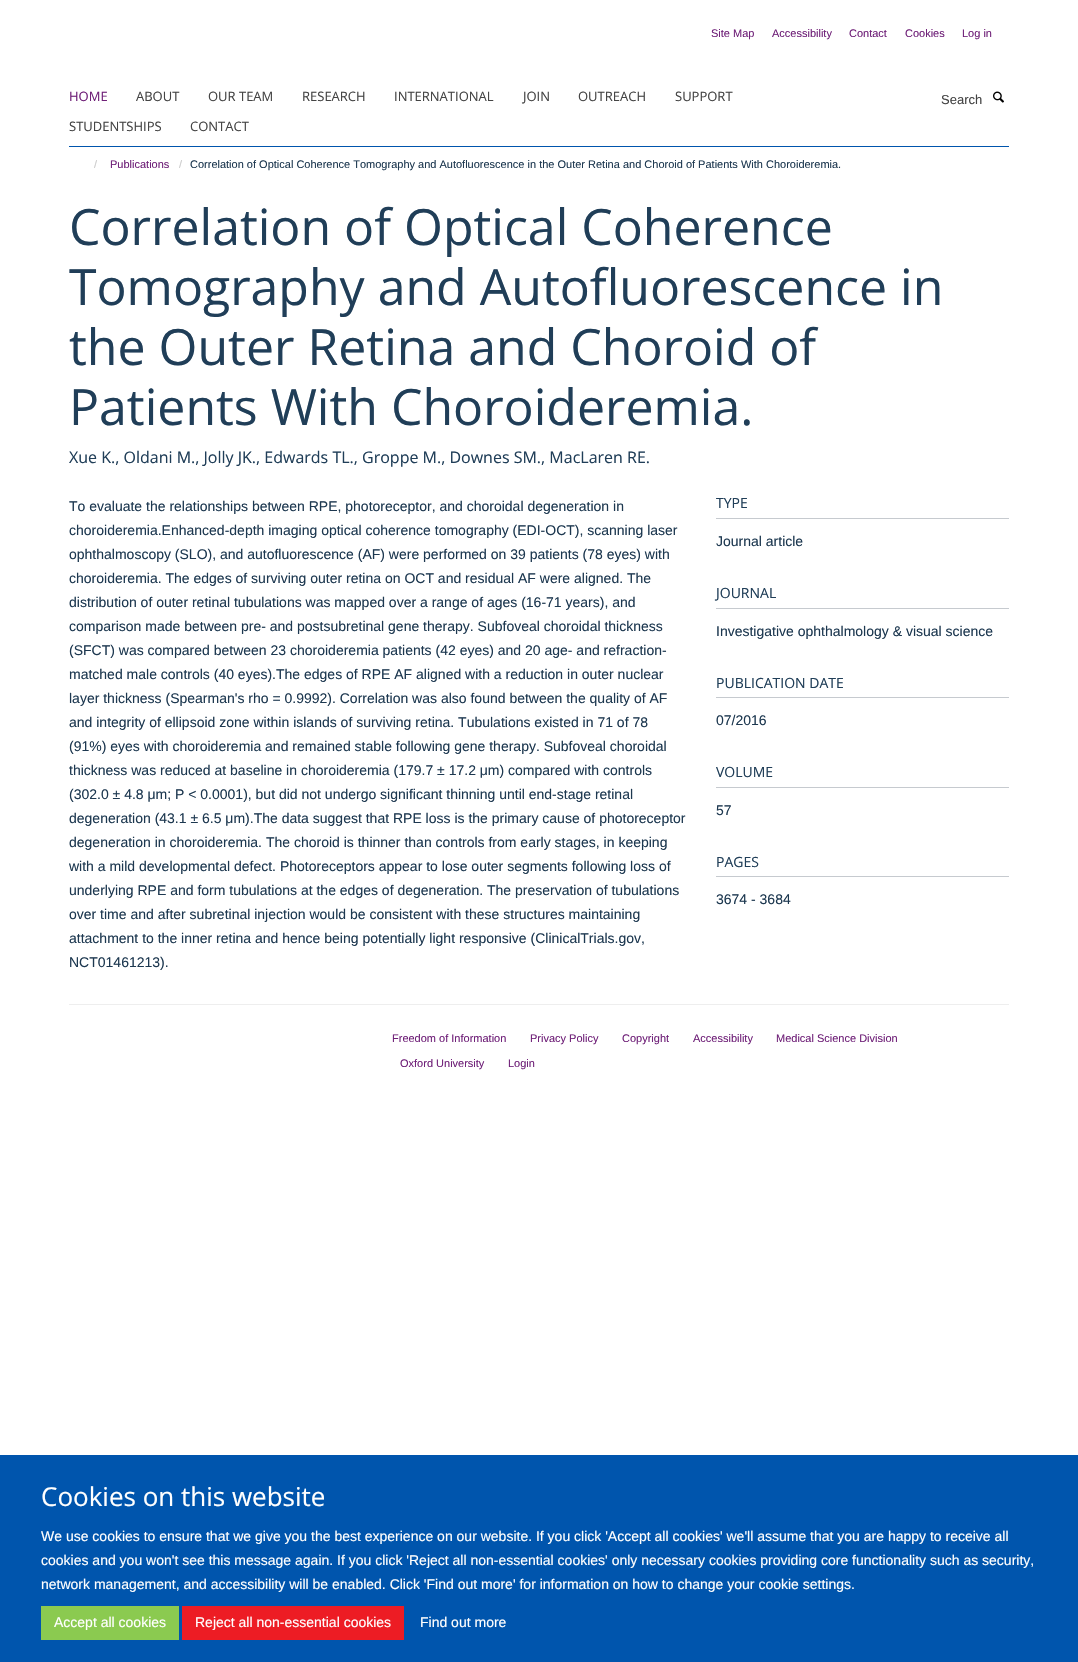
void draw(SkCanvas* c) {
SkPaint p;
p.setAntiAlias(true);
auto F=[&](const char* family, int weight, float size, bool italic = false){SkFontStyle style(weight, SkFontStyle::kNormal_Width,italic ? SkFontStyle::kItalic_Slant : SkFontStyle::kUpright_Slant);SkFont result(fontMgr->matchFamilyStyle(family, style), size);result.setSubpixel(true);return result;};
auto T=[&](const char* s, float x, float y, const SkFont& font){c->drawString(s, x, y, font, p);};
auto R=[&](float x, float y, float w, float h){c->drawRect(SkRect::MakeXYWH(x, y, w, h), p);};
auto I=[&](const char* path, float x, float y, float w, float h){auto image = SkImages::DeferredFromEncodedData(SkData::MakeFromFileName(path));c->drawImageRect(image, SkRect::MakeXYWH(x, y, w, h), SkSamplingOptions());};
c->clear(0xffffffff);
auto f1 = F("Liberation Sans",400,11);
p.setColor(0xff6f2078);
T("Site Map",711,37,f1);
T("Accessibility",772,37,f1);
T("Contact",849,37,f1);
T("Cookies",905,37,f1);
T("Log in",962,37,f1);
p.setColor(0xff0055ad);
R(69,146,940,1);
auto f2 = F("Open Sans",400,13);
p.setColor(0xff6f2078);
T("HOME",69,101,f2);
p.setColor(0xff444444);
T("ABOUT",136,101,f2);
T("OUR TEAM",208,101,f2);
T("RESEARCH",302,101,f2);
T("INTERNATIONAL",394,101,f2);
T("JOIN",523,101,f2);
T("OUTREACH",578,101,f2);
T("SUPPORT",675,101,f2);
T("STUDENTSHIPS",69,131,f2);
T("CONTACT",190,131,f2);
auto f3 = F("Liberation Sans",400,13);
T("Search",941,104,f3);
I("1.png",993,91,11,12);
p.setColor(0xffcccccc);
T("/",94,168,f1);
p.setColor(0xff6f2078);
T("Publications",110,168,f1);
p.setColor(0xffcccccc);
T("/",179,168,f1);
p.setColor(0xff1d3850);
T("Correlation of Optical Coherence Tomography and Autofluorescence in the Outer Retina and Choroid of Patients With Choroideremia.",190,168,f1);
auto f4 = F("Open Sans",400,50);
p.setColor(0xff203e58);
T("Correlation of Optical Coherence",69,245,f4);
T("Tomography and Autofluorescence in",69,305,f4);
T("the Outer Retina and Choroid of",69,365,f4);
T("Patients With Choroideremia.",69,425,f4);
auto f5 = F("Open Sans",400,16);
T("Xue K., Oldani M., Jolly JK., Edwards TL., Groppe M., Downes SM., MacLaren RE.",69,463,f5);
auto f6 = F("Liberation Sans",400,14);
p.setColor(0xff1d3850);
T("To evaluate the relationships between RPE, photoreceptor, and choroidal degeneration in",69,511,f6);
T("choroideremia.Enhanced-depth imaging optical coherence tomography (EDI-OCT), scanning laser",69,535,f6);
T("ophthalmoscopy (SLO), and autofluorescence (AF) were performed on 39 patients (78 eyes) with",69,559,f6);
T("choroideremia. The edges of surviving outer retina on OCT and residual AF were aligned. The",69,583,f6);
T("distribution of outer retinal tubulations was mapped over a range of ages (16-71 years), and",69,607,f6);
T("comparison made between pre- and postsubretinal gene therapy. Subfoveal choroidal thickness",69,631,f6);
T("(SFCT) was compared between 23 choroideremia patients (42 eyes) and 20 age- and refraction-",69,655,f6);
T("matched male controls (40 eyes).The edges of RPE AF aligned with a reduction in outer nuclear",69,679,f6);
T("layer thickness (Spearman's rho = 0.9992). Correlation was also found between the quality of AF",69,703,f6);
T("and integrity of ellipsoid zone within islands of surviving retina. Tubulations existed in 71 of 78",69,727,f6);
T("(91%) eyes with choroideremia and remained stable following gene therapy. Subfoveal choroidal",69,751,f6);
T("thickness was reduced at baseline in choroideremia (179.7 ± 17.2 μm) compared with controls",69,775,f6);
T("(302.0 ± 4.8 μm; P < 0.0001), but did not undergo significant thinning until end-stage retinal",69,799,f6);
T("degeneration (43.1 ± 6.5 μm).The data suggest that RPE loss is the primary cause of photoreceptor",69,823,f6);
T("degeneration in choroideremia. The choroid is thinner than controls from early stages, in keeping",69,847,f6);
T("with a mild developmental defect. Photoreceptors appear to lose outer segments following loss of",69,871,f6);
T("underlying RPE and form tubulations at the edges of degeneration. The preservation of tubulations",69,895,f6);
T("over time and after subretinal injection would be consistent with these structures maintaining",69,919,f6);
T("attachment to the inner retina and hence being potentially light responsive (ClinicalTrials.gov,",69,943,f6);
T("NCT01461213).",69,967,f6);
p.setColor(0xffc6cacf);
R(716,518,293,1);
auto f7 = F("Open Sans",400,14);
p.setColor(0xff203e58);
T("TYPE",716,508,f7);
p.setColor(0xff1d3850);
T("Journal article",716,546,f6);
p.setColor(0xffc6cacf);
R(716,608,293,1);
p.setColor(0xff203e58);
T("JOURNAL",716,598,f7);
p.setColor(0xff1d3850);
T("Investigative ophthalmology & visual science",716,636,f6);
p.setColor(0xffc6cacf);
R(716,697,293,1);
p.setColor(0xff203e58);
T("PUBLICATION DATE",716,688,f7);
p.setColor(0xff1d3850);
T("07/2016",716,725,f6);
p.setColor(0xffc6cacf);
R(716,787,293,1);
p.setColor(0xff203e58);
T("VOLUME",716,777,f7);
p.setColor(0xff1d3850);
T("57",716,815,f6);
p.setColor(0xffc6cacf);
R(716,876,293,1);
p.setColor(0xff203e58);
T("PAGES",716,867,f7);
p.setColor(0xff1d3850);
T("3674 - 3684",716,904,f6);
p.setColor(0xffeeeeee);
R(69,1004,940,1);
p.setColor(0xff6f2078);
T("Freedom of Information",392,1042,f1);
T("Privacy Policy",530,1042,f1);
T("Copyright",622,1042,f1);
T("Accessibility",693,1042,f1);
T("Medical Science Division",776,1042,f1);
T("Oxford University",400,1067,f1);
T("Login",508,1067,f1);
p.setColor(0xff0055ad);
R(0,1455,1078,207);
auto f8 = F("Open Sans",400,26);
p.setColor(0xffffffff);
T("Cookies on this website",41,1506,f8);
T("We use cookies to ensure that we give you the best experience on our website. If you click 'Accept all cookies' we'll assume that you are happy to receive all",41,1541,f6);
T("cookies and you won't see this message again. If you click 'Reject all non-essential cookies' only necessary cookies providing core functionality such as security,",41,1565,f6);
T("network management, and accessibility will be enabled. Click 'Find out more' for information on how to change your cookie settings.",41,1589,f6);
p.setColor(0xff8bca50);
R(41,1606,138,34);
p.setColor(0xffffffff);
T("Accept all cookies",54,1627,f6);
p.setColor(0xffed1c24);
R(182,1606,222,34);
p.setColor(0xffffffff);
T("Reject all non-essential cookies",195,1627,f6);
T("Find out more",420,1627,f6);
}
